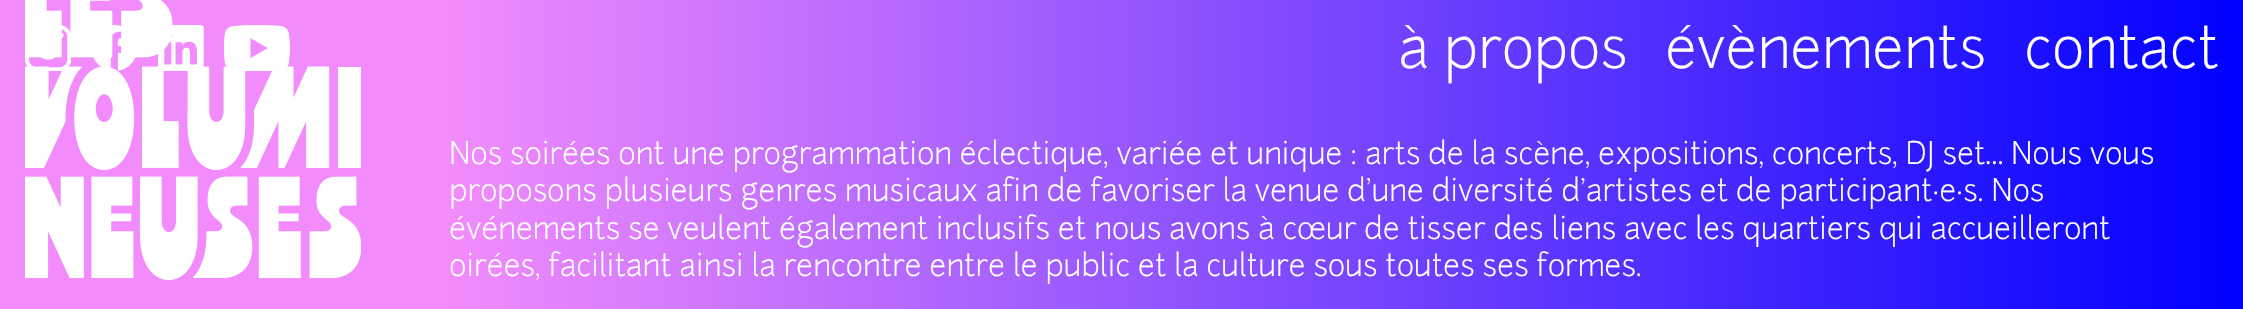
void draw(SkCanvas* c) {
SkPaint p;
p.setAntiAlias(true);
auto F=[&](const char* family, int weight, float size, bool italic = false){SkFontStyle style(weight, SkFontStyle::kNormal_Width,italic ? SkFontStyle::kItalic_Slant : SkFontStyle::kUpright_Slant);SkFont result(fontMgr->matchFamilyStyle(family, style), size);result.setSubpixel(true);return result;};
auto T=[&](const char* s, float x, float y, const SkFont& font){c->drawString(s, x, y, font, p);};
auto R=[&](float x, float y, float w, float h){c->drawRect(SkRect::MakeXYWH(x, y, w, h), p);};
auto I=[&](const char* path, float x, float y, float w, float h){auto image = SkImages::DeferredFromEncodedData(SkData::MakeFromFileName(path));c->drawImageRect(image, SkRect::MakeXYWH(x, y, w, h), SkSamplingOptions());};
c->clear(0xffffffff);
{
const SkColor colors[] = {0xff0000ff,0xfff28cfc};
const float stops[] = {0,.8};
const SkPoint ends[] = {{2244,168}, {0,167}};
p.setShader(SkGradientShader::MakeLinear(ends, colors, stops, 2, SkTileMode::kClamp));
p.setAlpha(255);
}
R(0,0,2243,309);
I("1.png",25,0,336,280);
I("2.png",25,25,46,46);
I("3.png",93,25,43,46);
I("4.png",158,25,46,46);
I("5.png",224,25,66,46);
auto f1 = F("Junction",300,56.25);
p.setShader(nullptr);
p.setColor(0xffffffff);
T("à propos",1398,68,f1);
T("évènements",1665,68,f1);
T("contact",2024,68,f1);
auto f2 = F("Junction",300,30);
T("Nos soirées ont une programmation éclectique, variée et unique : arts de la scène, expositions, concerts, DJ set… Nous vous",449,164,f2);
T("proposons plusieurs genres musicaux afin de favoriser la venue d’une diversité d’artistes et de participant·e·s. Nos",449,201,f2);
T("événements se veulent également inclusifs et nous avons à cœur de tisser des liens avec les quartiers qui accueilleront",449,239,f2);
T("oirées, facilitant ainsi la rencontre entre le public et la culture sous toutes ses formes.",449,276,f2);
}
